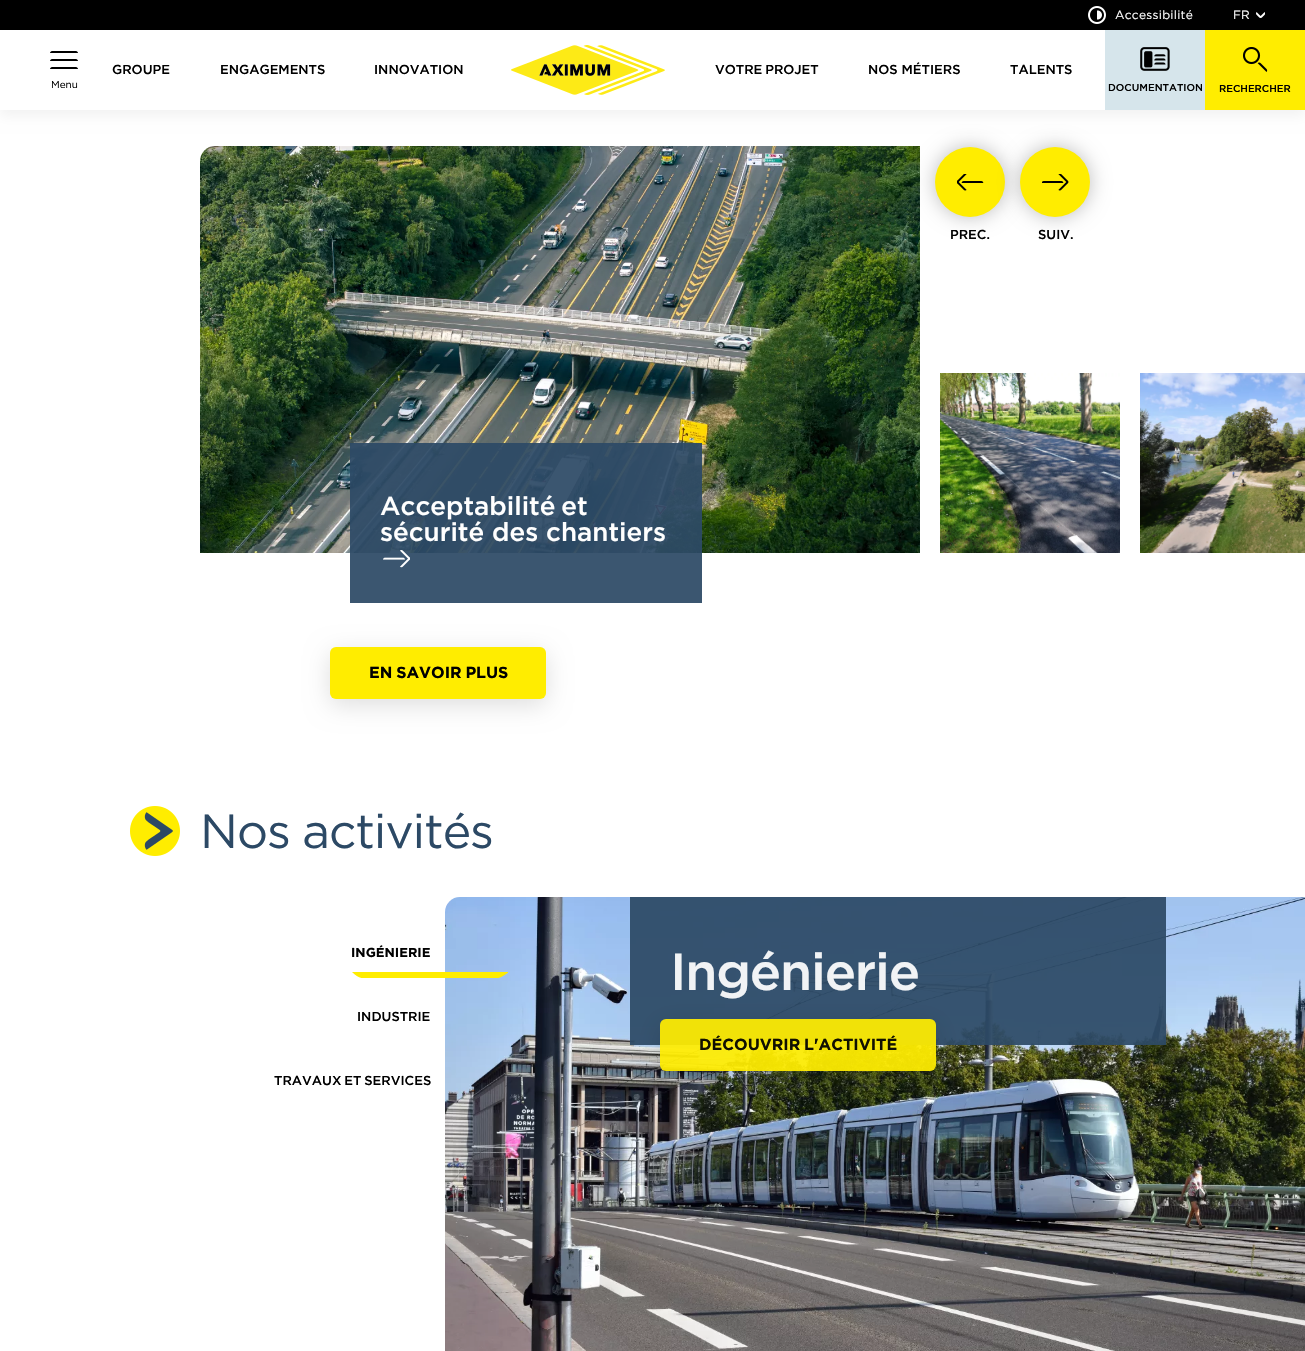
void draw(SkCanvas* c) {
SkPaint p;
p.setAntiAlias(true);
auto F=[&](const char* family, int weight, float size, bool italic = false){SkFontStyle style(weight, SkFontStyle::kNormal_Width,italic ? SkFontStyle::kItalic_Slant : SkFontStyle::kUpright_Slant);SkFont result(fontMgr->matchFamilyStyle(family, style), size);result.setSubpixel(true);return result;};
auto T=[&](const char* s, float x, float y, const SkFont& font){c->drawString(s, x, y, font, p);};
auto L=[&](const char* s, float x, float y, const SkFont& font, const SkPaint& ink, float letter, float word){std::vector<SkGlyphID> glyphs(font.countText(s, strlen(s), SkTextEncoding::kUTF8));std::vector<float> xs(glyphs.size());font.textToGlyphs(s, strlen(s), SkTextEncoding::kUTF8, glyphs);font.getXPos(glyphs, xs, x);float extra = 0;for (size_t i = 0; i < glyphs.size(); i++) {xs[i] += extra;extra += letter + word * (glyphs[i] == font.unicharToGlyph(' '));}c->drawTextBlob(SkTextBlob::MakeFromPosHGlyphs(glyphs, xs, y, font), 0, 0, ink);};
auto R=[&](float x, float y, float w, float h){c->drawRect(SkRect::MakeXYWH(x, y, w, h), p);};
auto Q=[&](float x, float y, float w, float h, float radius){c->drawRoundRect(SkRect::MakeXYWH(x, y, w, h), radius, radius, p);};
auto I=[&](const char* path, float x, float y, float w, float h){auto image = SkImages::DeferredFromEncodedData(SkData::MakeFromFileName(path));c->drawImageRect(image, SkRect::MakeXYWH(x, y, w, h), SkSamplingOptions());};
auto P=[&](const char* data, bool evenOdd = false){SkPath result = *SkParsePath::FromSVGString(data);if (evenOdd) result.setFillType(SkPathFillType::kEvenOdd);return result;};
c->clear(0xffffffff);
p.setColor(0x0d000000);
p.setMaskFilter(SkMaskFilter::MakeBlur(kNormal_SkBlurStyle, 6));
c->drawRect(SkRect::MakeXYWH(0,6,1305,110),p);
p.setMaskFilter(nullptr);
p.setColor(0xffffffff);
R(0,30,1105,80);
p.setColor(0xff000000);
R(0,0,1305,30);
I("1.png",1088,6,18,18);
auto f1 = F("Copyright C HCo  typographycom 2",300,12);
p.setColor(0xffffffff);
L("Accessibilité",1115,19,f1,p,.25,0);
L("FR",1233,19,f1,p,.25,0);
I("2.png",1256,12,9,6);
auto f2 = F("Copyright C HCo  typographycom",300,13);
p.setColor(0xff000000);
T("GROUPE",112,74,f2);
T("ENGAGEMENTS",220,74,f2);
T("INNOVATION",374,74,f2);
I("3.png",511,45,154,50);
L("VOTRE PROJET",715,74,f2,p,0,-1);
T("NOS MÉTIERS",868,74,f2);
T("TALENTS",1010,74,f2);
c->drawPath(P("M52 51h24c1 0 2 1 2 2h-28c0-1 1-2 2-2z"),p);
c->drawPath(P("M52 59h24c1 0 2 1 2 2h-28c0-1 1-2 2-2z"),p);
c->drawPath(P("M52 67h24c1 0 2 1 2 2h-28c0-1 1-2 2-2z"),p);
auto f3 = F("Copyright C HCo  typographycom 2",300,10);
T("Menu",51,88,f3);
p.setColor(0xffd6e5eb);
R(1105,30,100,80);
I("4.png",1140,47,30,24);
auto f4 = F("Copyright C HCo  typographycom",300,10);
p.setColor(0xff000000);
T("DOCUMENTATION",1108,91,f4);
p.setColor(0xffffed00);
R(1205,30,100,80);
I("5.png",1243,47,25,25);
p.setColor(0xff000000);
T("RECHERCHER",1219,92,f4);
I("8.png",200,146,720,407);
p.setColor(0x42000000);
p.setMaskFilter(SkMaskFilter::MakeBlur(kNormal_SkBlurStyle, 10));
c->drawRoundRect(SkRect::MakeXYWH(935,147,70,70),35,35,p);
p.setMaskFilter(nullptr);
p.setColor(0xffffed00);
c->drawCircle(970,182,35,p);
I("6.png",957,174,27,17);
p.setColor(0xff000000);
T("PREC.",950,239,f2);
p.setColor(0x42000000);
p.setMaskFilter(SkMaskFilter::MakeBlur(kNormal_SkBlurStyle, 10));
c->drawRoundRect(SkRect::MakeXYWH(1020,147,70,70),35,35,p);
p.setMaskFilter(nullptr);
p.setColor(0xffffed00);
c->drawCircle(1055,182,35,p);
I("7.png",1042,174,27,17);
p.setColor(0xff000000);
T("SUIV.",1038,239,f2);
p.setColor(0xed2c4965);
R(350,443,352,160);
auto f5 = F("Copyright C HCo  typographycom",300,26);
p.setColor(0xffffffff);
L("Acceptabilité et",380,515,f5,p,0,-2);
T("sécurité des chantiers",380,541,f5);
I("9.png",383,550,27,18);
I("10.png",940,373,180,180);
I("11.png",1140,373,165,180);
p.setColor(0x21000000);
p.setMaskFilter(SkMaskFilter::MakeBlur(kNormal_SkBlurStyle, 12));
c->drawRoundRect(SkRect::MakeXYWH(330,653,216,52),6,6,p);
p.setMaskFilter(nullptr);
p.setColor(0xffffed00);
Q(330,647,216,52,6);
auto f6 = F("Copyright C HCo  typographycom",400,16);
p.setColor(0xff000000);
L("EN SAVOIR PLUS",369,678,f6,p,0,-1);
I("12.png",130,806,50,50);
auto f7 = F("Copyright C HCo  typographycom 2",300,48);
p.setColor(0xff2c4965);
L("Nos activités",200,848,f7,p,-1,-1);
auto f8 = F("Copyright C HCo  typographycom",400,13);
p.setColor(0xff000000);
T("INGÉNIERIE",351,957,f8);
I("13.png",445,897,860,454);
c->save();
c->clipRect(SkRect::MakeXYWH(352,972,156,6));
p.setColor(0xffffed00);
c->drawPath(P("M503 976c-7 5-26 2-27 2h-91c-16 0-23 4-33-6h157z"),p);
c->restore();
p.setColor(0xff000000);
T("INDUSTRIE",357,1021,f2);
L("TRAVAUX ET SERVICES",274,1085,f2,p,0,-1);
p.setColor(0xed2c4965);
R(630,897,536,148);
auto f9 = F("Copyright C HCo  typographycom",300,52);
p.setColor(0xfff1f3f5);
L("Ingénierie",670,990,f9,p,-1.25,0);
c->save();
c->clipPath(P("M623 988h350v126h-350zm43 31h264c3.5 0 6 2.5 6 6v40c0 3.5-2.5 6-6 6h-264c-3.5 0-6-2.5-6-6v-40c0-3.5 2.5-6 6-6z",true),true);
p.setColor(0x1f000000);
p.setMaskFilter(SkMaskFilter::MakeBlur(kNormal_SkBlurStyle, 12));
c->drawRoundRect(SkRect::MakeXYWH(660,1025,276,52),6,6,p);
p.setMaskFilter(nullptr);
c->restore();
p.setColor(0xedffed00);
Q(660,1019,276,52,6);
p.setColor(0xff111001);
L("DÉCOUVRIR L'ACTIVITÉ",699,1050,f6,p,0,-1);
}
